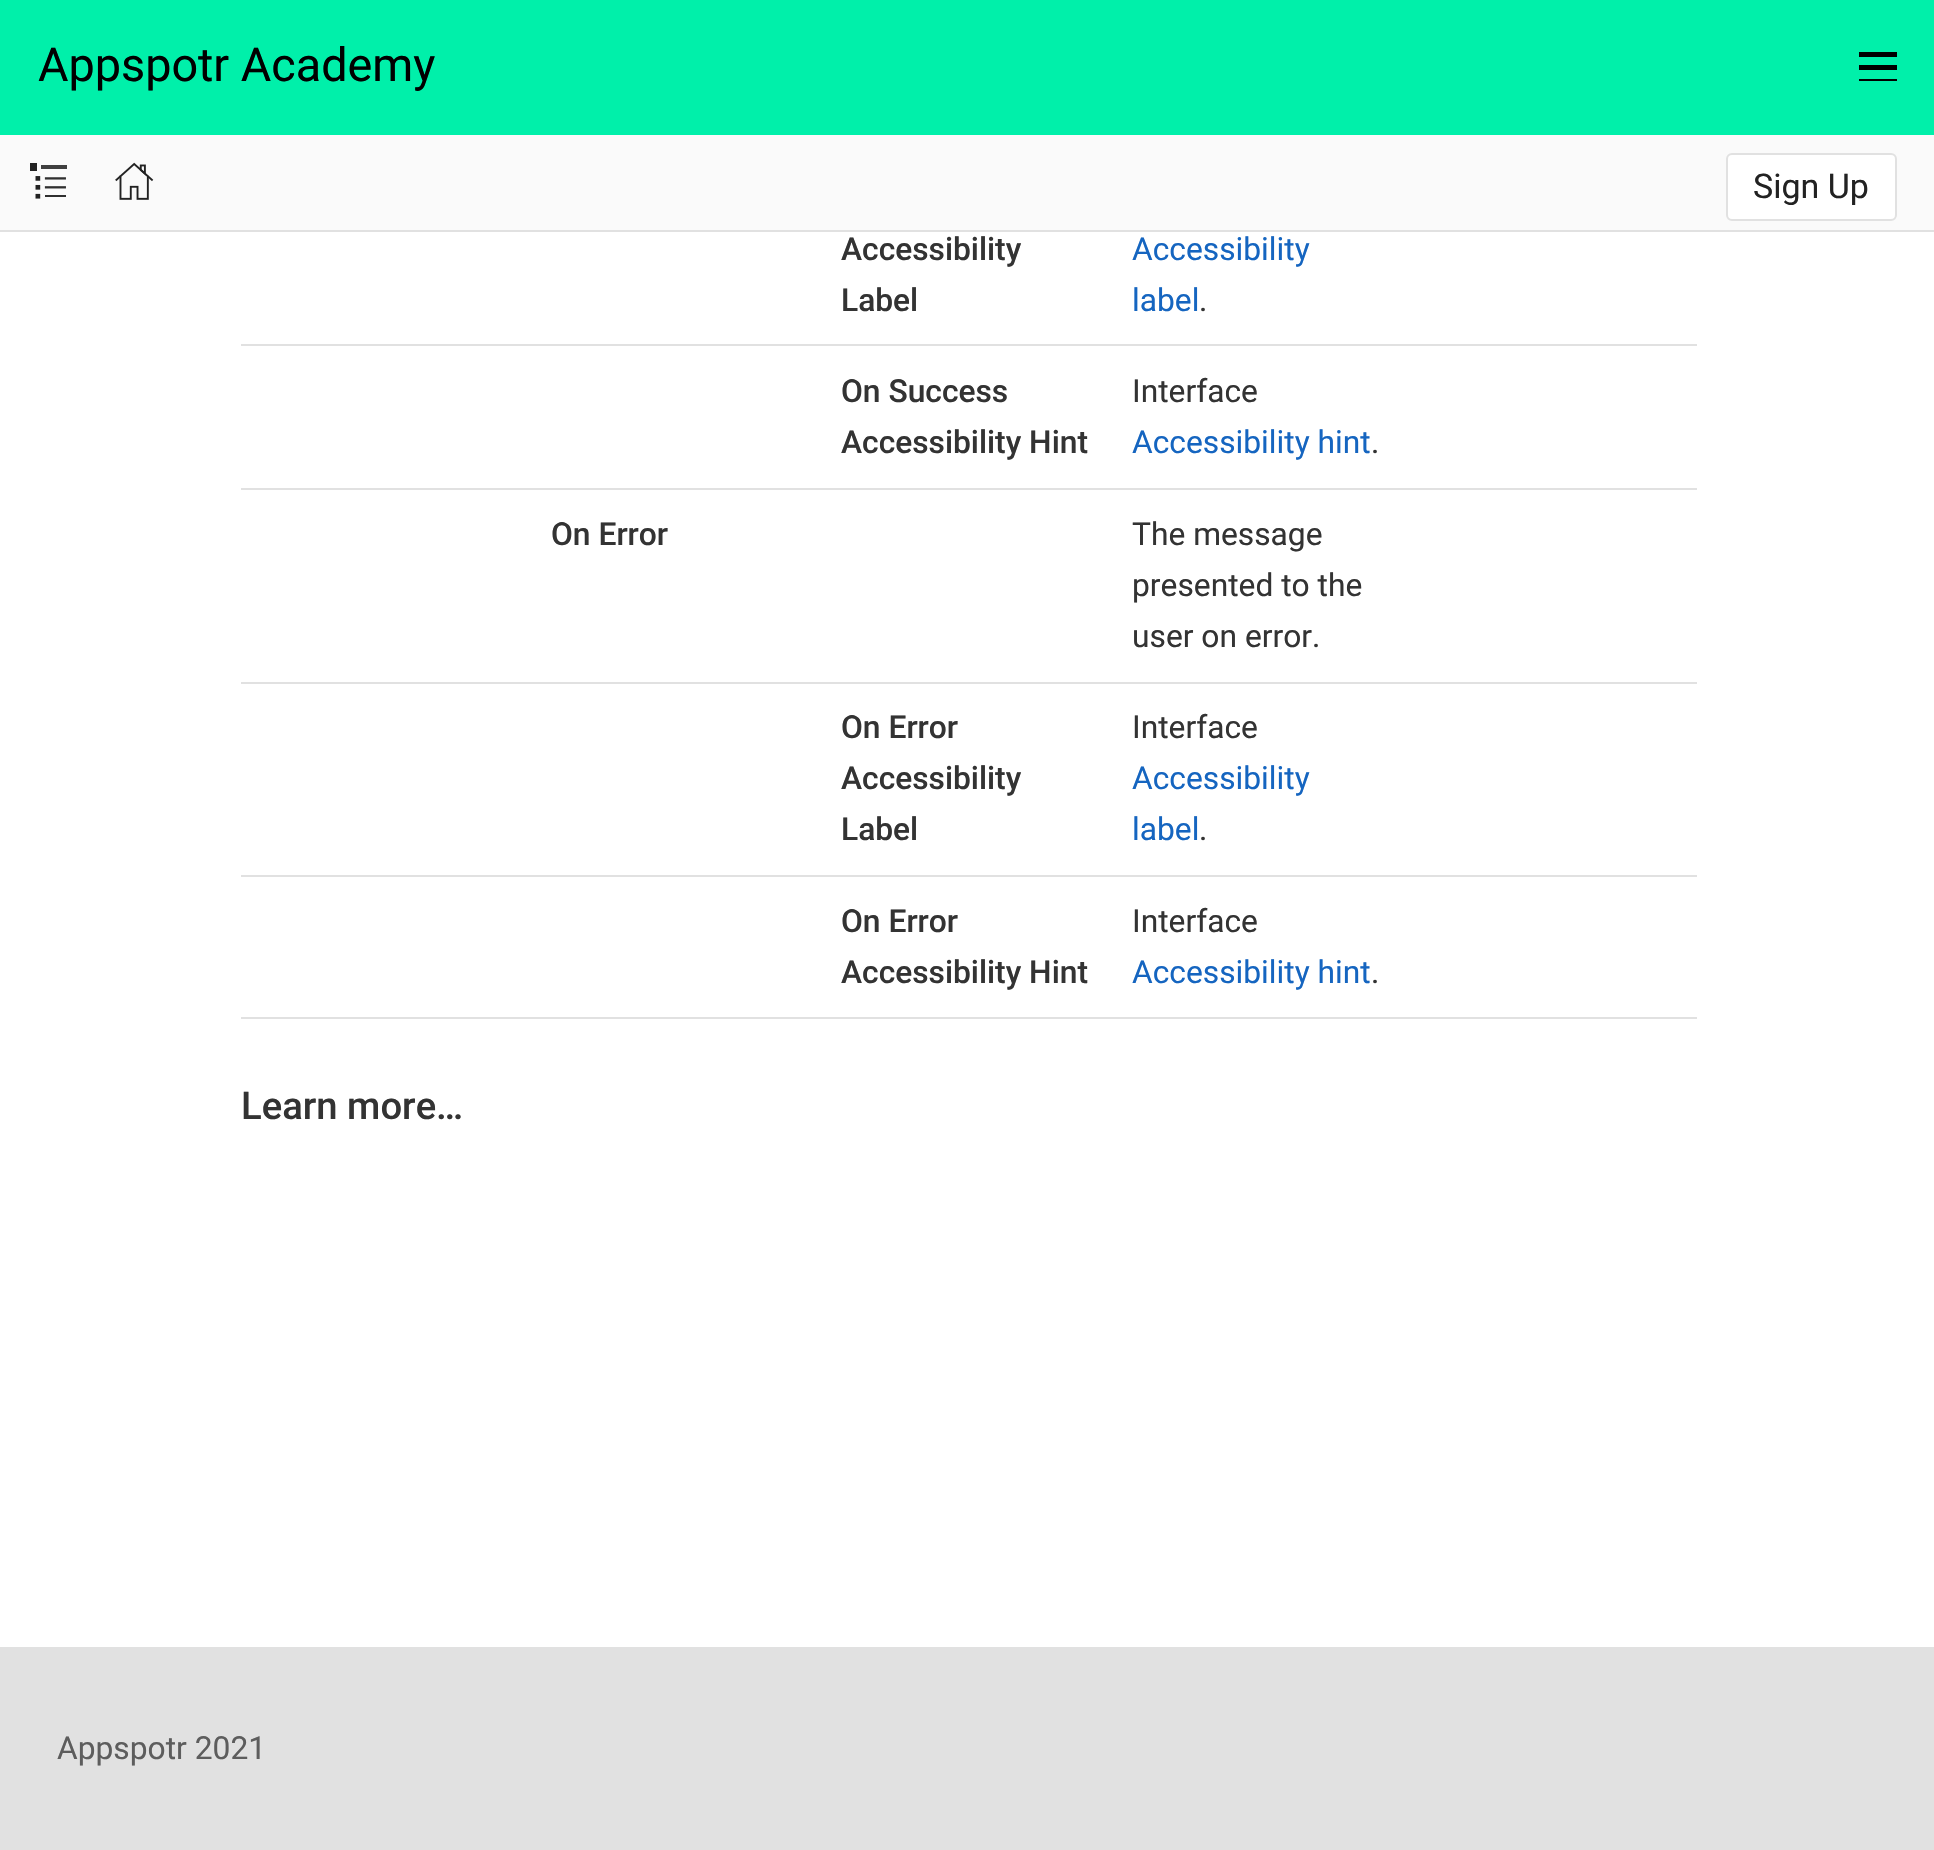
void draw(SkCanvas* c) {
SkPaint p;
p.setAntiAlias(true);
auto F=[&](const char* family, int weight, float size, bool italic = false){SkFontStyle style(weight, SkFontStyle::kNormal_Width,italic ? SkFontStyle::kItalic_Slant : SkFontStyle::kUpright_Slant);SkFont result(fontMgr->matchFamilyStyle(family, style), size);result.setSubpixel(true);return result;};
auto T=[&](const char* s, float x, float y, const SkFont& font){c->drawString(s, x, y, font, p);};
auto R=[&](float x, float y, float w, float h){c->drawRect(SkRect::MakeXYWH(x, y, w, h), p);};
auto I=[&](const char* path, float x, float y, float w, float h){auto image = SkImages::DeferredFromEncodedData(SkData::MakeFromFileName(path));c->drawImageRect(image, SkRect::MakeXYWH(x, y, w, h), SkSamplingOptions());};
c->clear(0xffffffff);
p.setColor(0xff00f0aa);
R(0,0,1934,135);
auto f1 = F("Roboto",400,46.75);
p.setColor(0xff000000);
T("Appspotr Academy",38,81,f1);
R(1859,52,38,5);
R(1859,65,38,5);
R(1859,79,38,2);
p.setColor(0xfffafafa);
R(0,135,1934,95);
p.setColor(0xffffffff);
c->drawRoundRect(SkRect::MakeXYWH(1727,154,169,66),5,5,p);
p.setStroke(true);
p.setStrokeWidth(2);
p.setColor(0xffe1e1e1);
c->drawRoundRect(SkRect::MakeXYWH(1727,154,169,66),5,5,p);
auto f2 = F("Roboto",400,34);
p.setStroke(false);
p.setColor(0xff222222);
T("Sign Up",1753,198,f2);
p.setColor(0xffe1e1e1);
R(0,230,1934,2);
I("1.png",30,163,37,36);
I("2.png",115,162,39,38);
auto f3 = F("Roboto",500,31.75);
p.setColor(0xff333333);
T("Accessibility",841,260,f3);
T("Label",841,311,f3);
auto f4 = F("Roboto",400,31.75);
p.setColor(0xff1565c0);
T("Accessibility",1132,260,f4);
T("label",1132,311,f4);
p.setColor(0xff333333);
T(".",1199,311,f4);
p.setColor(0xffe1e1e1);
R(241,344,1456,2);
p.setColor(0xff333333);
T("On Success",841,402,f3);
T("Accessibility Hint",841,453,f3);
T("Interface",1132,402,f4);
p.setColor(0xff1565c0);
T("Accessibility hint",1132,453,f4);
p.setColor(0xff333333);
T(".",1371,453,f4);
p.setColor(0xffe1e1e1);
R(241,488,1456,2);
p.setColor(0xff333333);
T("On Error",551,545,f3);
T("The message",1132,545,f4);
T("presented to the",1132,596,f4);
T("user on error.",1132,647,f4);
p.setColor(0xffe1e1e1);
R(241,682,1456,2);
p.setColor(0xff333333);
T("On Error",841,738,f3);
T("Accessibility",841,789,f3);
T("Label",841,840,f3);
T("Interface",1132,738,f4);
p.setColor(0xff1565c0);
T("Accessibility",1132,789,f4);
T("label",1132,840,f4);
p.setColor(0xff333333);
T(".",1199,840,f4);
p.setColor(0xffe1e1e1);
R(241,875,1456,2);
R(241,1017,1456,2);
p.setColor(0xff333333);
T("On Error",841,932,f3);
T("Accessibility Hint",841,983,f3);
T("Interface",1132,932,f4);
p.setColor(0xff1565c0);
T("Accessibility hint",1132,983,f4);
p.setColor(0xff333333);
T(".",1371,983,f4);
auto f5 = F("Roboto",500,38.25);
T("Learn more…",241,1119,f5);
p.setColor(0xffe1e1e1);
R(0,1647,1934,203);
p.setColor(0xff5d5d5d);
T("Appspotr 2021",57,1759,f4);
}
